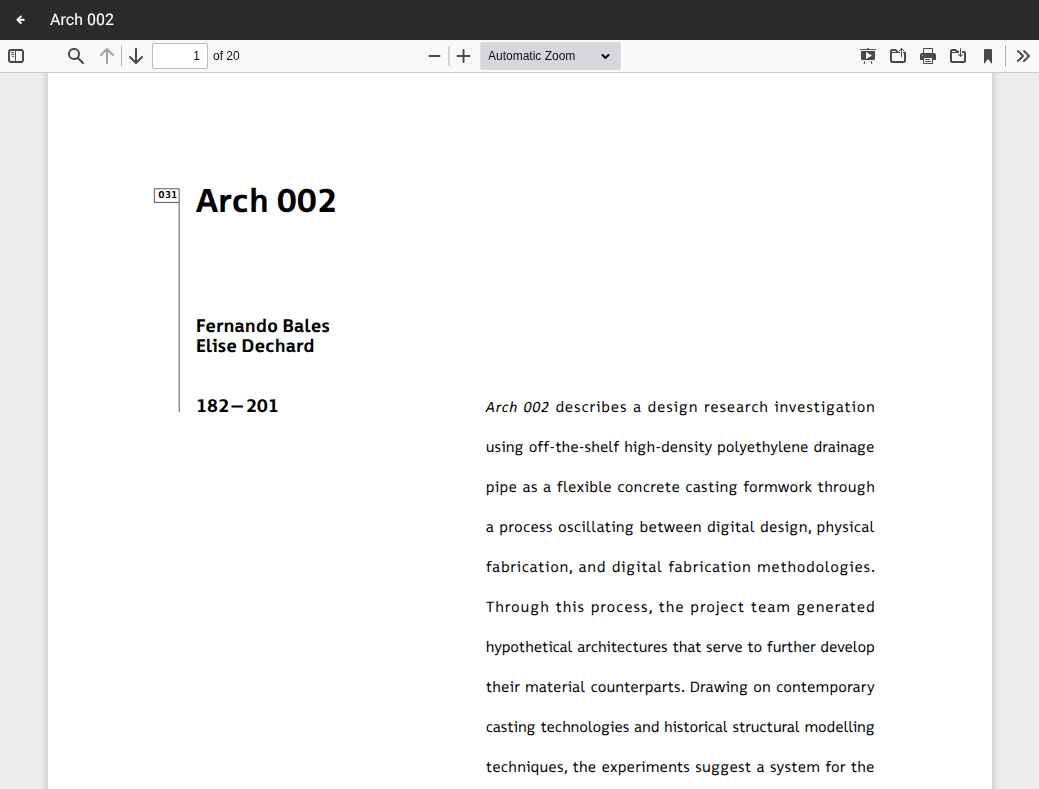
void draw(SkCanvas* c) {
SkPaint p;
p.setAntiAlias(true);
auto F=[&](const char* family, int weight, float size, bool italic = false){SkFontStyle style(weight, SkFontStyle::kNormal_Width,italic ? SkFontStyle::kItalic_Slant : SkFontStyle::kUpright_Slant);SkFont result(fontMgr->matchFamilyStyle(family, style), size);result.setSubpixel(true);return result;};
auto T=[&](const char* s, float x, float y, const SkFont& font){c->drawString(s, x, y, font, p);};
auto R=[&](float x, float y, float w, float h){c->drawRect(SkRect::MakeXYWH(x, y, w, h), p);};
auto I=[&](const char* path, float x, float y, float w, float h){auto image = SkImages::DeferredFromEncodedData(SkData::MakeFromFileName(path));c->drawImageRect(image, SkRect::MakeXYWH(x, y, w, h), SkSamplingOptions());};
c->clear(0xfff7f7f7);
p.setColor(0xff2b2b2b);
R(0,0,1039,40);
I("1.png",16,15,9,10);
auto f1 = F("Roboto",400,16);
p.setColor(0xffffffff);
T("Arch 002",50,25,f1);
I("2.png",0,42,1039,747);
}
